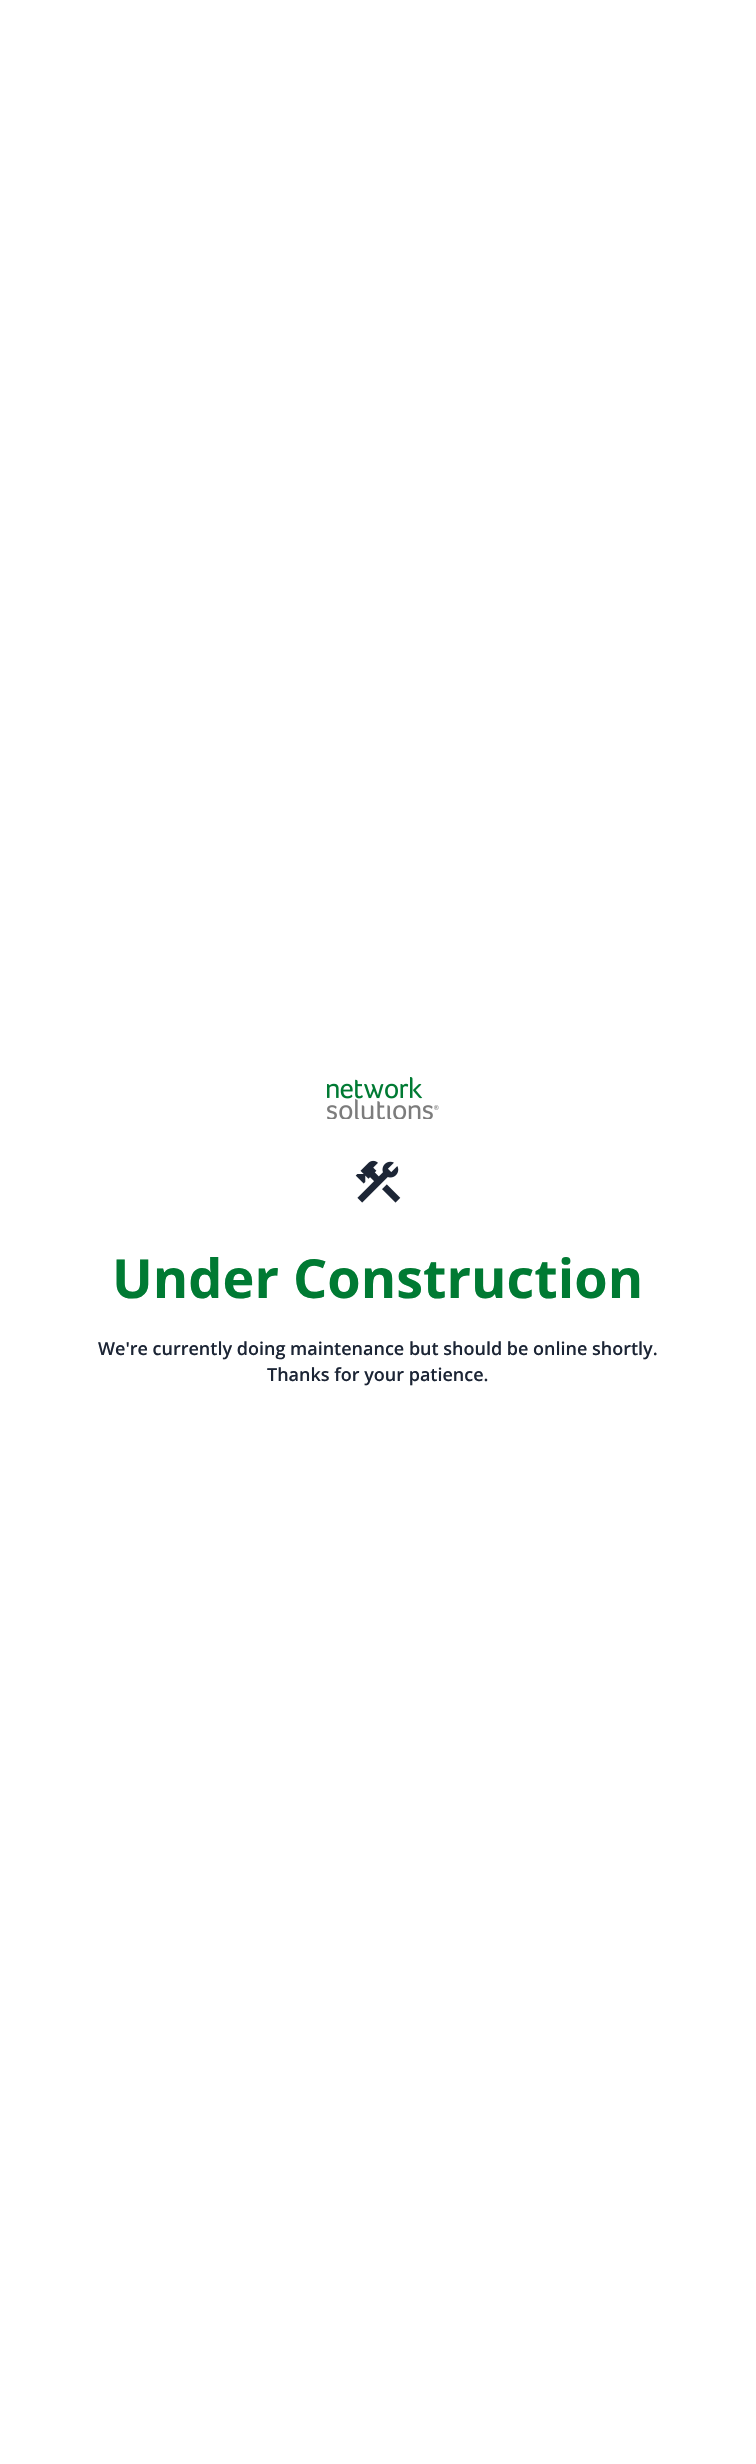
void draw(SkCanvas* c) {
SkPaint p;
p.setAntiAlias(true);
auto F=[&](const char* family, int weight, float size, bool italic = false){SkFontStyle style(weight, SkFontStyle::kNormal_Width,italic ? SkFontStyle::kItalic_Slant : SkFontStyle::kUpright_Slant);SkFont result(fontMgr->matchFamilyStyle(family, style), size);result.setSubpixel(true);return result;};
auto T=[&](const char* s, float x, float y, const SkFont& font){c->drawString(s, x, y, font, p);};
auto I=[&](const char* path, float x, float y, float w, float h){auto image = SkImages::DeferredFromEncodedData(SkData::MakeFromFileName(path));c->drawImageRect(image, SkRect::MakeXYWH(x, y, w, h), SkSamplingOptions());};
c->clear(0xffffffff);
I("1.png",327,1077,112,42);
I("2.png",355,1160,46,43);
auto f1 = F("Open Sans",700,54);
p.setColor(0xff007a33);
T("Under Construction",112,1298,f1);
auto f2 = F("Open Sans",600,18);
p.setColor(0xff1c2535);
T("We're currently doing maintenance but should be online shortly.",98,1355,f2);
T("Thanks for your patience.",267,1381,f2);
}
